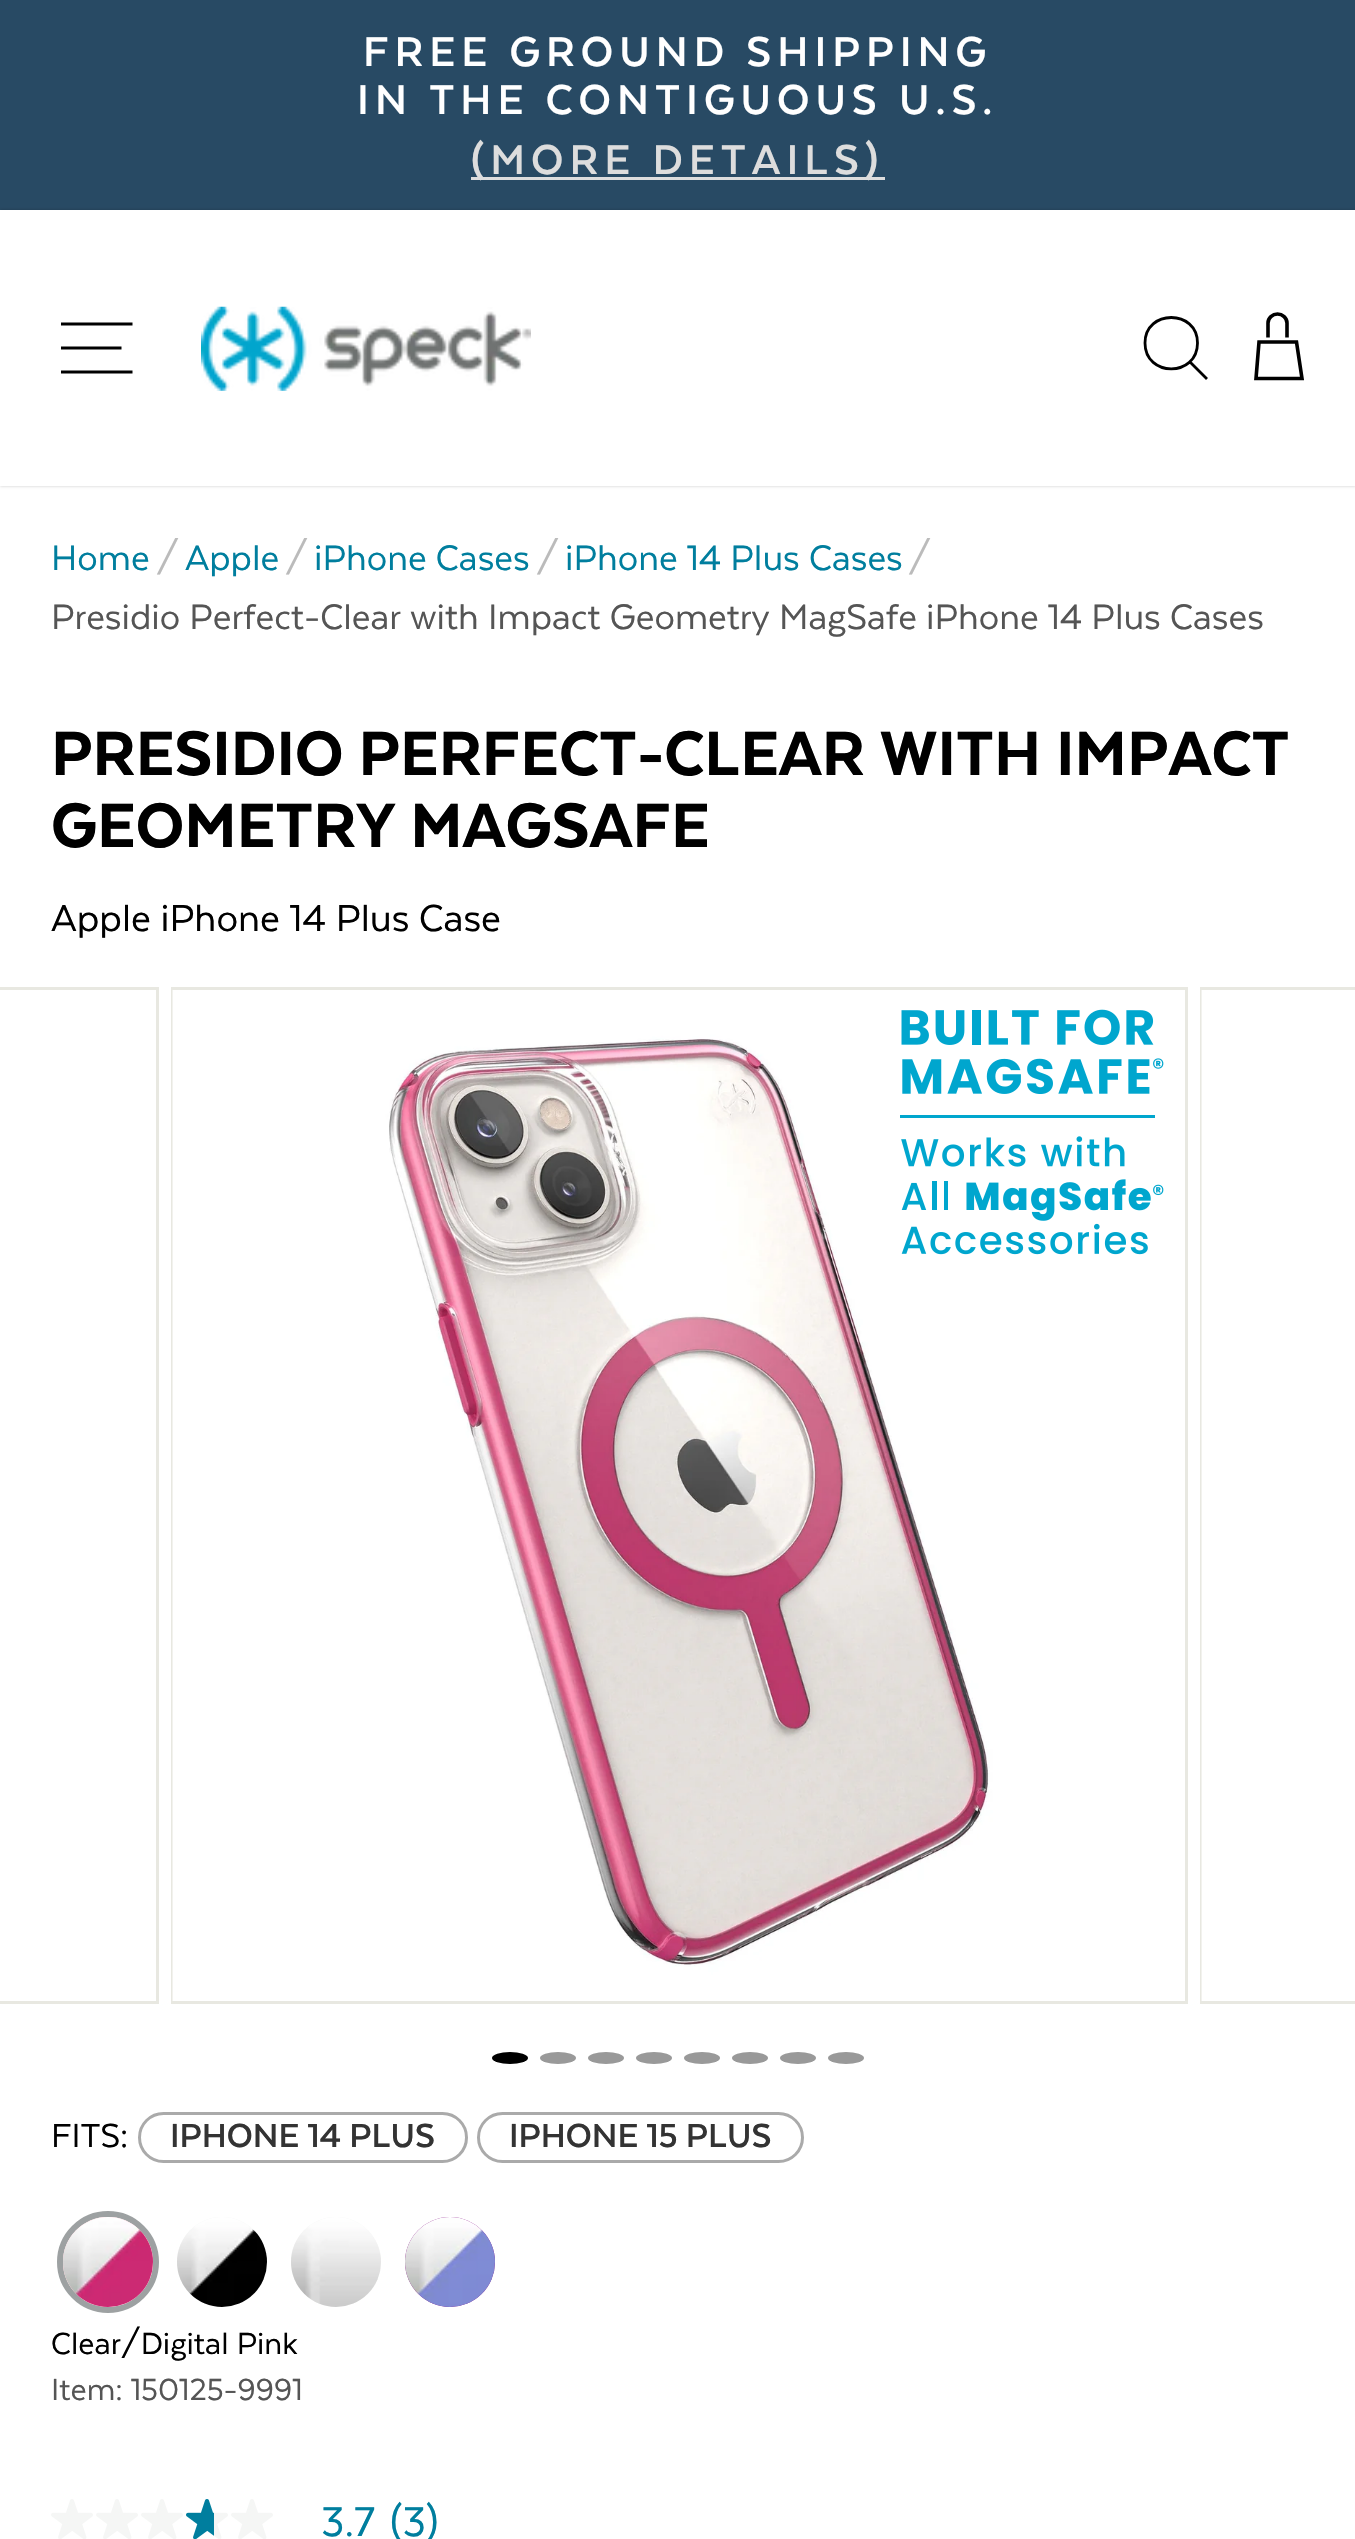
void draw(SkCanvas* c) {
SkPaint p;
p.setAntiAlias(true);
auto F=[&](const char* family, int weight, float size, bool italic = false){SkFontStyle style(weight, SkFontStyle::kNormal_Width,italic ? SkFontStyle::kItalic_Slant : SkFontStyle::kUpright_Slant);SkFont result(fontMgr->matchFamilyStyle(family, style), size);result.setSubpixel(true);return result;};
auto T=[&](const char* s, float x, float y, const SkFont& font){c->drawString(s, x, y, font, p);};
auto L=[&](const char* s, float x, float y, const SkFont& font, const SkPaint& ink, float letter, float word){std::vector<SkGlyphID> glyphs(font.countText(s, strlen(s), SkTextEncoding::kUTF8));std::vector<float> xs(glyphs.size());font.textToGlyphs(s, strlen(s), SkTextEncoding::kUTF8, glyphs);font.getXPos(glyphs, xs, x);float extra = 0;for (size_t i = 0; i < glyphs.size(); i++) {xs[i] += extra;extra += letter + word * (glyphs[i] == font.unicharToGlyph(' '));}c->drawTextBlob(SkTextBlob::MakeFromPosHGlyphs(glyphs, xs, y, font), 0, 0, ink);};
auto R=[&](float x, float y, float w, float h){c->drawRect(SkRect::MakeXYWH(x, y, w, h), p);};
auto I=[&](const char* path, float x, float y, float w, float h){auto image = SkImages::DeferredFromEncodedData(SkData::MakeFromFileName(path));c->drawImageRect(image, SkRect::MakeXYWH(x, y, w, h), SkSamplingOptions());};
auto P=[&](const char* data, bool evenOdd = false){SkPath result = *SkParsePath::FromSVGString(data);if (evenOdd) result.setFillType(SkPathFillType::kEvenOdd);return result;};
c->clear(0xffffffff);
p.setColor(0xff284a64);
R(0,0,1355,210);
auto f1 = F("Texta",700,48);
p.setColor(0xffffffff);
L("FREE GROUND SHIPPING",363,66,f1,p,6,0);
L("IN THE CONTIGUOUS U.S.",357,114,f1,p,6,0);
p.setColor(0xffdddddd);
R(471,177,414,3);
L("(MORE DETAILS)",471,174,f1,p,6,0);
c->save();
c->clipPath(P("M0 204h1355v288h-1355zm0 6h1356v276h-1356z",true),true);
p.setColor(0x33000000);
p.setMaskFilter(SkMaskFilter::MakeBlur(kNormal_SkBlurStyle, 1.5));
c->drawRect(SkRect::MakeXYWH(0,210,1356,276),p);
p.setMaskFilter(nullptr);
c->restore();
p.setStroke(true);
p.setStrokeWidth(2.8);
p.setColor(0xff000000);
c->drawPath(P("M61 324h71.5m-71.5 24h60.5m-60.5 24h71.5"),p);
I("1.png",201,306,330,85);
c->drawPath(P("M1197.5 343c0 34.5-52.5 34.5-52.5 0c0-34 52.5-34 52.5 0zm9.5 36l-17-17"),p);
p.setStrokeWidth(3.6);
c->drawPath(P("M1268 337.5v-14.5c0-5 4.5-9 9.5-9c5 0 9.5 4 9.5 9v14.5"),p);
c->drawPath(P("M1302 378.5h-46l3-36.5h37.5z"),p);
auto f2 = F("Texta",400,40.8);
p.setStroke(false);
p.setColor(0xff007e9e);
T("Home",51,570,f2);
p.setColor(0xffbbbbbb);
T("/",156,570,f2);
p.setColor(0xff007e9e);
T("Apple",185,570,f2);
p.setColor(0xffbbbbbb);
T("/",285,570,f2);
p.setColor(0xff007e9e);
T("iPhone Cases",314,570,f2);
p.setColor(0xffbbbbbb);
T("/",536,570,f2);
p.setColor(0xff007e9e);
T("iPhone 14 Plus Cases",565,570,f2);
p.setColor(0xffbbbbbb);
T("/",908,570,f2);
p.setColor(0xff555555);
T("Presidio Perfect-Clear with Impact Geometry MagSafe iPhone 14 Plus Cases",51,629,f2);
auto f3 = F("Texta",900,72);
p.setColor(0xff000000);
T("PRESIDIO PERFECT-CLEAR WITH IMPACT",51,775,f3);
T("GEOMETRY MAGSAFE",51,847,f3);
auto f4 = F("Texta",400,43.25);
T("Apple iPhone 14 Plus Case",51,931,f4);
p.setStroke(true);
p.setStrokeWidth(3);
p.setColor(0xffe8e8e1);
c->drawRect(SkRect::MakeXYWH(-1.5,988.5,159,1014),p);
c->drawRect(SkRect::MakeXYWH(172.5,988.5,1014,1014),p);
I("2.png",172,990,1,1011);
I("3.png",172,990,821,1011);
I("4.png",900,1009,264,246);
c->drawRect(SkRect::MakeXYWH(1201.5,988.5,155,1014),p);
p.setStroke(false);
p.setColor(0xfff2f2ee);
R(1201,990,1,1011);
I("5.png",1202,990,1,1011);
p.setColor(0xff000000);
c->drawOval(SkRect::MakeXYWH(492,2052,36,12),p);
p.setColor(0xff999999);
c->drawOval(SkRect::MakeXYWH(540,2052,36,12),p);
c->drawOval(SkRect::MakeXYWH(588,2052,36,12),p);
c->drawOval(SkRect::MakeXYWH(636,2052,36,12),p);
c->drawOval(SkRect::MakeXYWH(684,2052,36,12),p);
c->drawOval(SkRect::MakeXYWH(732,2052,36,12),p);
c->drawOval(SkRect::MakeXYWH(780,2052,36,12),p);
c->drawOval(SkRect::MakeXYWH(828,2052,36,12),p);
auto f5 = F("Texta",400,38.5);
p.setColor(0xff000000);
T("FITS:",51,2147,f5);
p.setStroke(true);
p.setColor(0xffaaaaaa);
c->drawRoundRect(SkRect::MakeXYWH(139.5,2113.5,327,48),24,24,p);
auto f6 = F("Texta",700,38.5);
p.setStroke(false);
p.setColor(0xff333333);
T("IPHONE 14 PLUS",170,2147,f6);
p.setStroke(true);
p.setColor(0xffaaaaaa);
c->drawRoundRect(SkRect::MakeXYWH(478.5,2113.5,324,48),24,24,p);
p.setStroke(false);
p.setColor(0xff333333);
T("IPHONE 15 PLUS",509,2147,f6);
p.setStroke(true);
p.setStrokeWidth(6);
p.setColor(0xff9da1a2);
c->drawCircle(108,2262,48,p);
p.setStroke(false);
p.setColor(0xffffc0cb);
c->drawCircle(108,2262,45,p);
I("6.png",63,2217,90,90);
p.setColor(0xfff5f6f5);
c->drawCircle(222,2262,45,p);
I("7.png",177,2217,90,90);
c->drawCircle(336,2262,45,p);
I("8.png",291,2217,90,90);
p.setColor(0xff800080);
c->drawCircle(450,2262,45,p);
I("9.png",405,2217,90,90);
auto f7 = F("Texta",400,35.25);
p.setColor(0xff000000);
T("Clear/Digital Pink",51,2354,f7);
p.setColor(0xff555555);
T("Item: 150125-9991",51,2400,f7);
I("10.png",51,2499,42,40);
I("10.png",96,2499,42,40);
I("10.png",141,2499,42,40);
I("11.png",186,2499,42,40);
I("10.png",231,2499,42,40);
auto f8 = F("Texta",400,48);
p.setColor(0xff007e9e);
T("3.7",321,2536,f8);
T("(3)",390,2536,f8);
}
